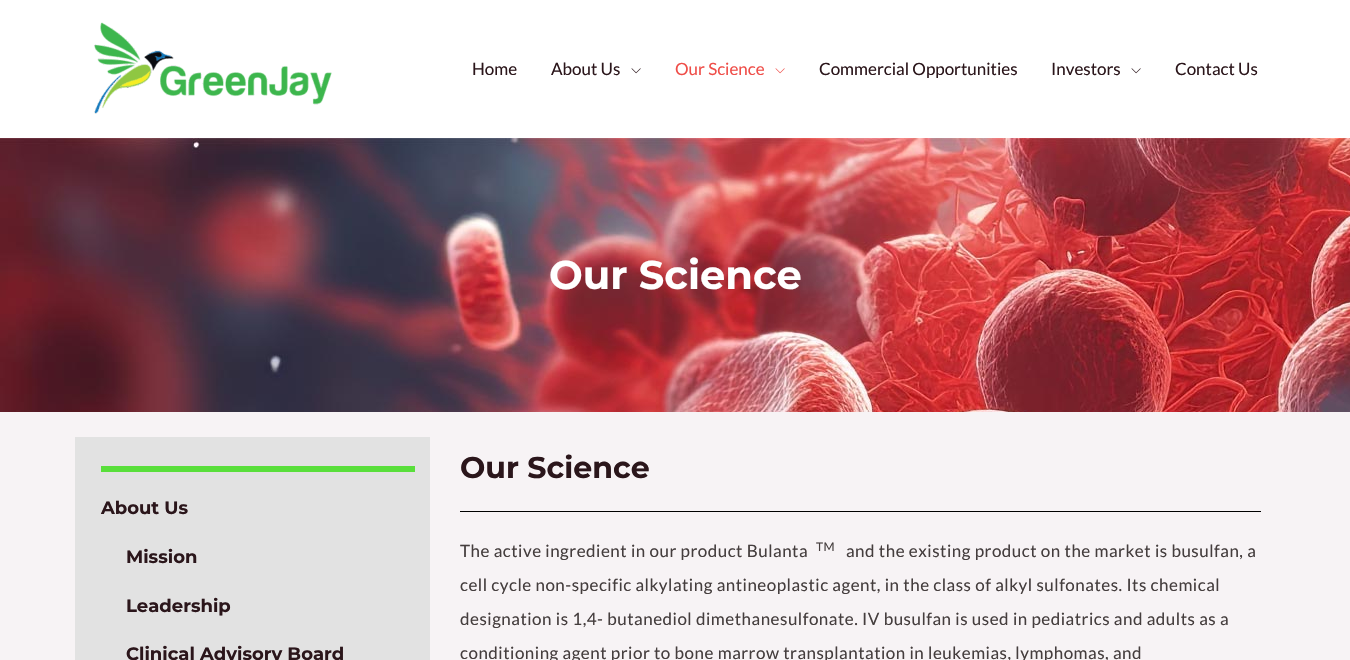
void draw(SkCanvas* c) {
SkPaint p;
p.setAntiAlias(true);
auto F=[&](const char* family, int weight, float size, bool italic = false){SkFontStyle style(weight, SkFontStyle::kNormal_Width,italic ? SkFontStyle::kItalic_Slant : SkFontStyle::kUpright_Slant);SkFont result(fontMgr->matchFamilyStyle(family, style), size);result.setSubpixel(true);return result;};
auto T=[&](const char* s, float x, float y, const SkFont& font){c->drawString(s, x, y, font, p);};
auto L=[&](const char* s, float x, float y, const SkFont& font, const SkPaint& ink, float letter, float word){std::vector<SkGlyphID> glyphs(font.countText(s, strlen(s), SkTextEncoding::kUTF8));std::vector<float> xs(glyphs.size());font.textToGlyphs(s, strlen(s), SkTextEncoding::kUTF8, glyphs);font.getXPos(glyphs, xs, x);float extra = 0;for (size_t i = 0; i < glyphs.size(); i++) {xs[i] += extra;extra += letter + word * (glyphs[i] == font.unicharToGlyph(' '));}c->drawTextBlob(SkTextBlob::MakeFromPosHGlyphs(glyphs, xs, y, font), 0, 0, ink);};
auto R=[&](float x, float y, float w, float h){c->drawRect(SkRect::MakeXYWH(x, y, w, h), p);};
auto I=[&](const char* path, float x, float y, float w, float h){auto image = SkImages::DeferredFromEncodedData(SkData::MakeFromFileName(path));c->drawImageRect(image, SkRect::MakeXYWH(x, y, w, h), SkSamplingOptions());};
c->clear(0xfff7f3f5);
p.setColor(0xffffffff);
R(0,0,1350,138);
I("1.png",94,22,238,92);
auto f1 = F("Lato",400,17);
p.setColor(0xff2b161b);
T("Home",472,75,f1);
T("About Us",551,75,f1);
I("2.png",631,68,10,6);
p.setColor(0xffef4d48);
T("Our Science",675,75,f1);
I("3.png",775,68,10,6);
p.setColor(0xff2b161b);
T("Commercial Opportunities",819,75,f1);
T("Investors",1051,75,f1);
I("2.png",1131,68,10,6);
T("Contact Us",1175,75,f1);
I("4.png",0,138,1350,274);
auto f2 = F("Montserrat",700,40);
p.setColor(0xffffffff);
T("Our Science",549,289,f2);
p.setColor(0xffe2e2e2);
R(75,437,355,223);
p.setColor(0xff59df3b);
R(101,466,314,6);
auto f3 = F("Montserrat",700,18);
p.setColor(0xff2b161b);
T("About Us",101,514,f3);
T("Mission",126,563,f3);
T("Leadership",126,612,f3);
T("Clinical Advisory Board",126,660,f3);
auto f4 = F("Montserrat",700,30);
T("Our Science",460,478,f4);
p.setColor(0xff000000);
R(460,511,801,1);
p.setColor(0xff453e3e);
L("The active ingredient in our product Bulanta",460,557,f1,p,.5,0);
auto f5 = F("Lato",400,12);
L("TM",816,551,f5,p,.5,0);
L("and the existing product on the market is busulfan, a",846,557,f1,p,.5,0);
L("cell cycle non-specific alkylating antineoplastic agent, in the class of alkyl sulfonates. Its chemical",460,591,f1,p,.5,0);
L("designation is 1,4- butanediol dimethanesulfonate. IV busulfan is used in pediatrics and adults as a",460,625,f1,p,.5,0);
L("conditioning agent prior to bone marrow transplantation in leukemias, lymphomas, and",460,659,f1,p,.5,0);
}
